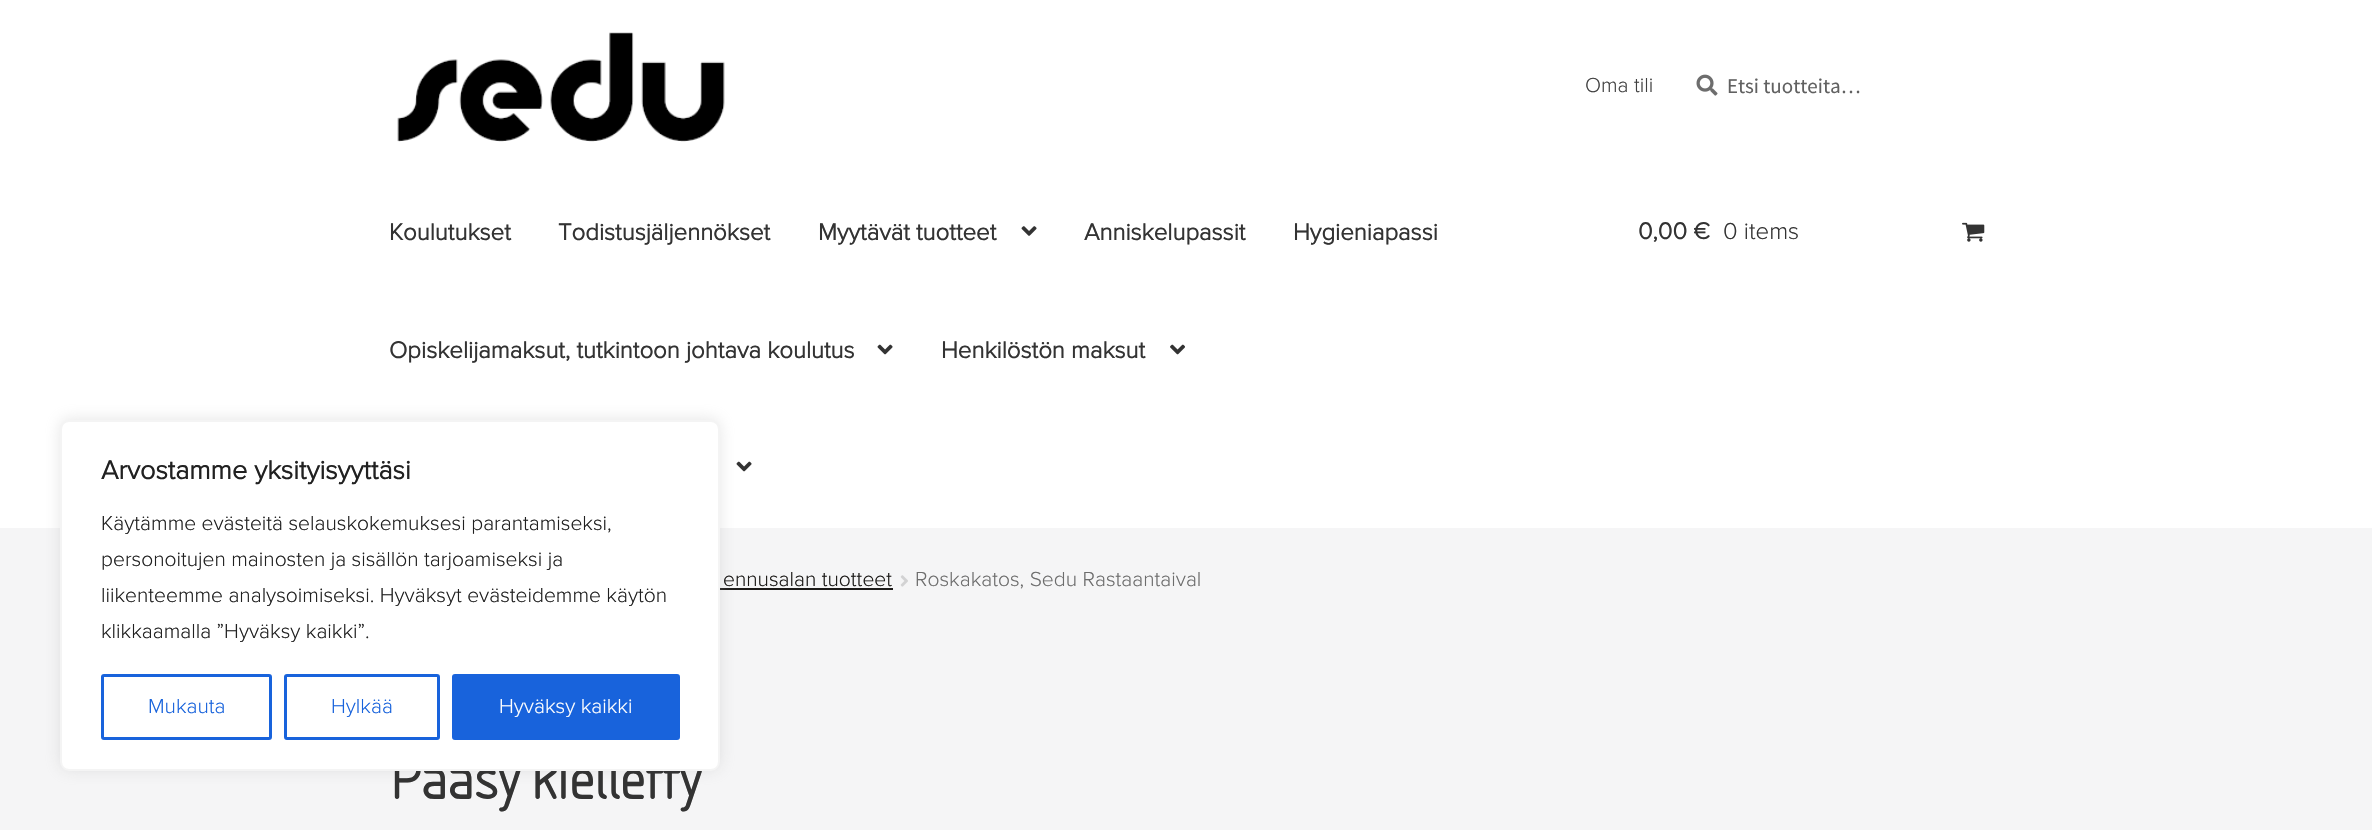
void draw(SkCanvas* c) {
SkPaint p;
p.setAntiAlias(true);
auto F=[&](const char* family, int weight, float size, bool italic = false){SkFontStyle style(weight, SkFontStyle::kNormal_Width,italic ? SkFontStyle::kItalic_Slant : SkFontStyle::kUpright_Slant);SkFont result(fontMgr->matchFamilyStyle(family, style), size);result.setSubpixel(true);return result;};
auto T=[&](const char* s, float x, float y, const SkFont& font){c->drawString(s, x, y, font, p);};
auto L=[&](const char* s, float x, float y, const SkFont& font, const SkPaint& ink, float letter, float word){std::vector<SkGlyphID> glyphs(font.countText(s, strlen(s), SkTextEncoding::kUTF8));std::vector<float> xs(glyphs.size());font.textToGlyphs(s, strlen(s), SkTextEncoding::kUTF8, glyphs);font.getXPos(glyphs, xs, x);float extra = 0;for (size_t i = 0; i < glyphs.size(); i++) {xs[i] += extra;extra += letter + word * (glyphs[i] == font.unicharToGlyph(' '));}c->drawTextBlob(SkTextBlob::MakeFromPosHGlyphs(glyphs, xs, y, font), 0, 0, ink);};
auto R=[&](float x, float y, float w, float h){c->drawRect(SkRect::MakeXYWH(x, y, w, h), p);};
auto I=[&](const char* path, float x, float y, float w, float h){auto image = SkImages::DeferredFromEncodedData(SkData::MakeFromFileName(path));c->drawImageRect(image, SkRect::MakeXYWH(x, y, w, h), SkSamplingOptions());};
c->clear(0xfff5f5f6);
p.setColor(0xffffffff);
R(0,0,2372,528);
I("4.png",736,461,16,11);
p.setColor(0xff1c1a18);
R(720,588,173,2);
p.setColor(0x4dacabab);
p.setMaskFilter(SkMaskFilter::MakeBlur(kNormal_SkBlurStyle, 7.5));
c->drawRoundRect(SkRect::MakeXYWH(60,419,660,351),9,9,p);
p.setMaskFilter(nullptr);
auto f1 = F("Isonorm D",400,63);
p.setColor(0xff333333);
L("Pääsy kielletty",389,799,f1,p,-1.5,0);
p.setColor(0xffffffff);
c->drawRoundRect(SkRect::MakeXYWH(61,421,658,349),8,8,p);
p.setStroke(true);
p.setStrokeWidth(2);
p.setColor(0xfff4f4f4);
c->drawRoundRect(SkRect::MakeXYWH(61,421,658,349),8,8,p);
auto f2 = F("Proxima Nova",700,27);
p.setStroke(false);
p.setColor(0xff212121);
T("Arvostamme yksityisyyttäsi",101,479,f2);
auto f3 = F("Proxima Nova",300,21);
T("Käytämme evästeitä selauskokemuksesi parantamiseksi,",101,530,f3);
T("personoitujen mainosten ja sisällön tarjoamiseksi ja",101,566,f3);
T("liikenteemme analysoimiseksi. Hyväksyt evästeidemme käytön",101,602,f3);
T("klikkaamalla ”Hyväksy kaikki”.",101,638,f3);
p.setStroke(true);
p.setStrokeWidth(3);
p.setColor(0xff1863dc);
c->drawRoundRect(SkRect::MakeXYWH(102.5,675.5,168,63),1.5,1.5,p);
p.setStroke(false);
T("Mukauta",148,713,f3);
p.setStroke(true);
c->drawRoundRect(SkRect::MakeXYWH(285.5,675.5,153,63),1.5,1.5,p);
p.setStroke(false);
T("Hylkää",331,713,f3);
c->drawRoundRect(SkRect::MakeXYWH(453.5,675.5,225,63),1.5,1.5,p);
p.setStroke(true);
c->drawRoundRect(SkRect::MakeXYWH(453.5,675.5,225,63),1.5,1.5,p);
p.setStroke(false);
p.setColor(0xffffffff);
T("Hyväksy kaikki",499,713,f3);
I("1.png",397,32,328,110);
p.setColor(0xff404040);
T("Oma tili",1585,92,f3);
I("2.png",1696,74,22,22);
auto f4 = F("Source Sans Pro",400,21);
p.setColor(0xff616161);
T("Etsi tuotteita…",1727,93,f4);
auto f5 = F("Proxima Nova",700,24);
p.setColor(0xff333333);
T("Koulutukset",389,240,f5);
T("Todistusjäljennökset",558,240,f5);
T("Myytävät tuotteet",818,240,f5);
I("3.png",1021,226,16,10);
T("Anniskelupassit",1084,240,f5);
T("Hygieniapassi",1293,240,f5);
T("Opiskelijamaksut, tutkintoon johtava koulutus",389,358,f5);
I("4.png",877,344,16,11);
T("Henkilöstön maksut",941,358,f5);
I("5.png",1170,344,15,11);
T("0,00 €",1638,239,f5);
auto f6 = F("Proxima Nova",300,24);
T("0 items",1723,239,f6);
I("6.png",1962,222,23,20);
p.setColor(0xff1c1a18);
T("ennusalan tuotteet",723,586,f3);
I("7.png",900,575,8,12);
p.setColor(0xff6d6d6d);
T("Roskakatos, Sedu Rastaantaival",915,586,f3);
}
